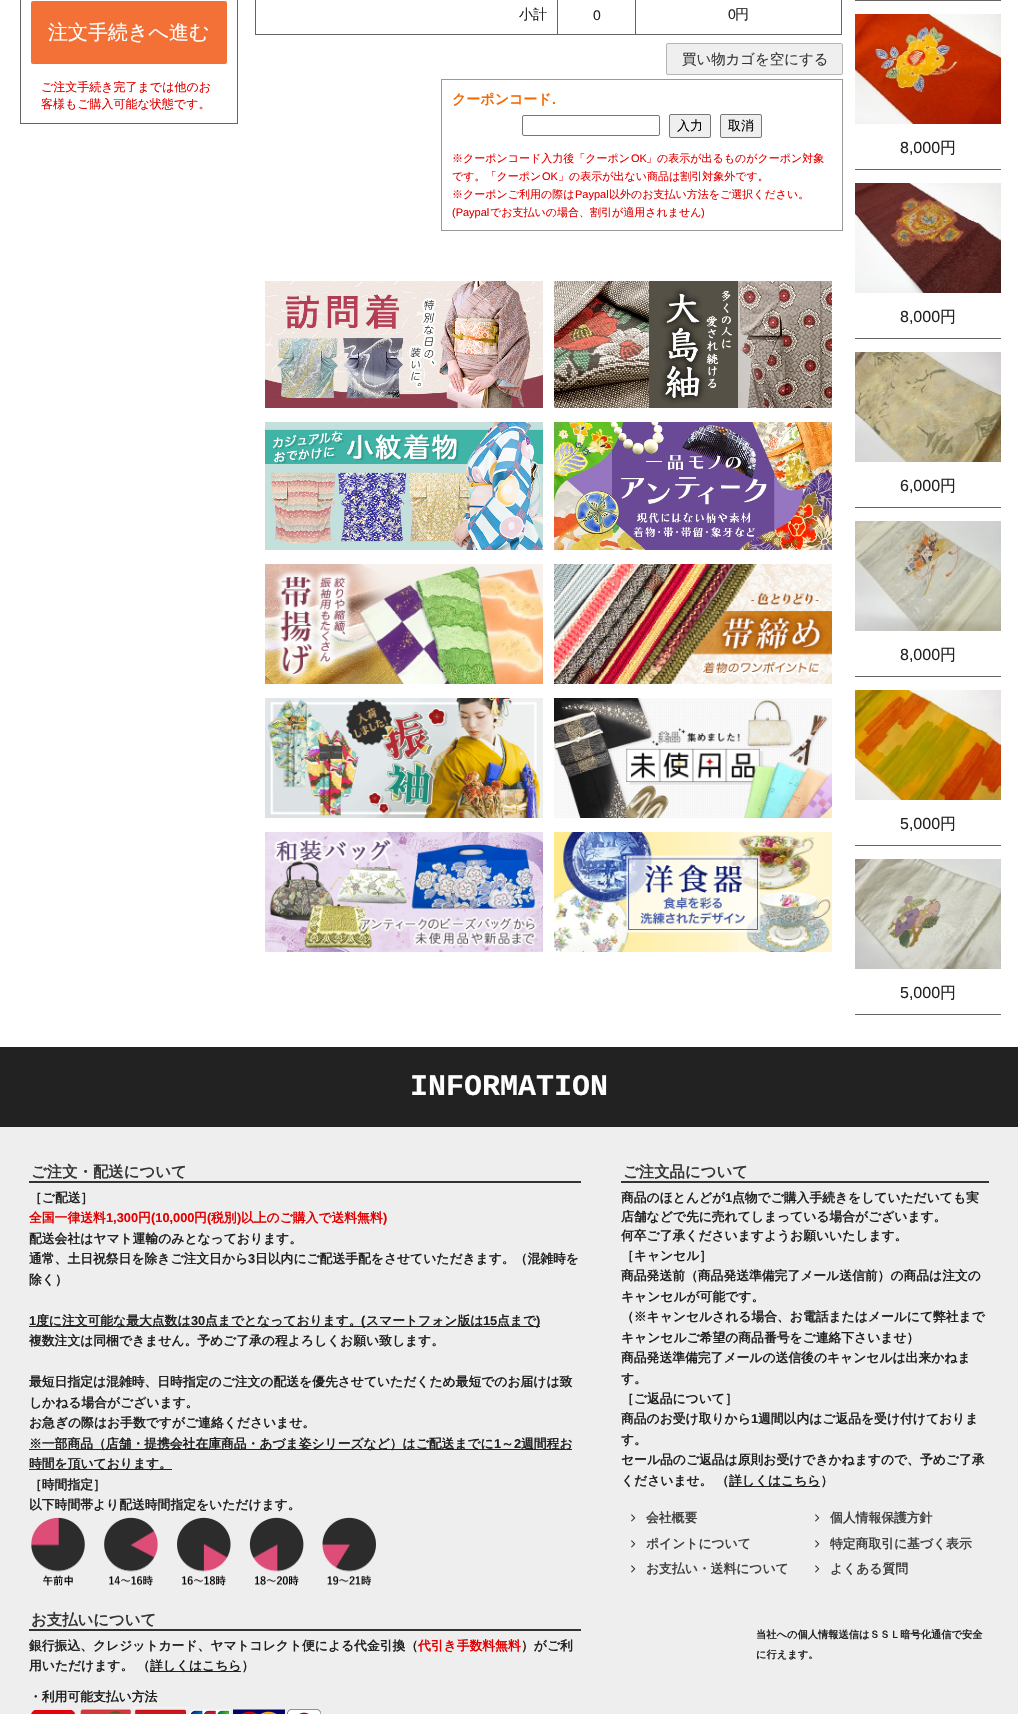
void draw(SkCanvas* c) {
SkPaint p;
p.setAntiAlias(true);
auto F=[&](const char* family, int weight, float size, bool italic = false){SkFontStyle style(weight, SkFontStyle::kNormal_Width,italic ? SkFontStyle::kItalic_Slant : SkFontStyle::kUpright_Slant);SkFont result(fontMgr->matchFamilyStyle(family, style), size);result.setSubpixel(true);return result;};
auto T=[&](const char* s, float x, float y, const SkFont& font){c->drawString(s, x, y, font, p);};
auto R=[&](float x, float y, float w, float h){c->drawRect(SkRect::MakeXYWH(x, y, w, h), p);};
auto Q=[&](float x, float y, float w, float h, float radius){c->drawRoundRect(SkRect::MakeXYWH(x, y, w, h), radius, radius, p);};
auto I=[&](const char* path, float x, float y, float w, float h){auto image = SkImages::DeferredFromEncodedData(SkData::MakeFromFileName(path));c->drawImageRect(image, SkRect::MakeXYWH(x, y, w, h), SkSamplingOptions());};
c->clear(0xffffffff);
p.setColor(0xff676362);
R(237,0,1,124);
R(20,123,218,1);
R(20,0,1,124);
p.setColor(0xfff37137);
Q(31,1,196,63,2);
auto f1 = F("WenQuanYi Zen Hei",500,20);
p.setColor(0xffffffff);
T("注文手続きへ進む",48,39,f1);
auto f2 = F("WenQuanYi Zen Hei",500,12);
p.setColor(0xffe30000);
T("ご注文手続き完了までは他のお",41,91,f2);
T("客様もご購入可能な状態です。",41,108,f2);
p.setColor(0xff676362);
R(841,0,1,35);
R(255,34,587,1);
R(255,0,1,35);
auto f3 = F("WenQuanYi Zen Hei",500,14);
p.setColor(0xff222222);
T("小計",519,19,f3);
p.setColor(0xff676362);
R(557,0,1,35);
auto f4 = F("Liberation Sans",400,14);
p.setColor(0xff222222);
T("0",593,20,f4);
p.setColor(0xff676362);
R(635,0,1,35);
p.setColor(0xff222222);
T("0",728,19,f4);
T("円",735,19,f3);
p.setColor(0xffefefef);
c->drawRoundRect(SkRect::MakeXYWH(666.5,43.5,176,31),1.5,1.5,p);
p.setStroke(true);
p.setStrokeWidth(1);
p.setColor(0xffb5b5b5);
c->drawRoundRect(SkRect::MakeXYWH(666.5,43.5,176,31),1.5,1.5,p);
auto f5 = F("WenQuanYi Zen Hei",500,14.4);
p.setStroke(false);
p.setColor(0xff363636);
T("買い物カゴを空にする",682,64,f5);
p.setStroke(true);
p.setColor(0xff999999);
c->drawRect(SkRect::MakeXYWH(441.5,79.5,401,151),p);
auto f6 = F("WenQuanYi Zen Hei",700,14);
p.setStroke(false);
p.setColor(0xfff46a04);
T("クーポンコード",452,104,f6);
auto f7 = F("Liberation Sans",700,14);
T(".",552,104,f7);
p.setStroke(true);
p.setColor(0xff767676);
c->drawRoundRect(SkRect::MakeXYWH(522.5,115.5,137,20),1.5,1.5,p);
p.setStroke(false);
p.setColor(0xffefefef);
c->drawRoundRect(SkRect::MakeXYWH(669.5,114.5,41,23),1.5,1.5,p);
p.setStroke(true);
p.setColor(0xff767676);
c->drawRoundRect(SkRect::MakeXYWH(669.5,114.5,41,23),1.5,1.5,p);
auto f8 = F("WenQuanYi Zen Hei",500,13);
p.setStroke(false);
p.setColor(0xff000000);
T("入力",677,130,f8);
p.setColor(0xffefefef);
c->drawRoundRect(SkRect::MakeXYWH(720.5,114.5,41,23),1.5,1.5,p);
p.setStroke(true);
p.setColor(0xff767676);
c->drawRoundRect(SkRect::MakeXYWH(720.5,114.5,41,23),1.5,1.5,p);
p.setStroke(false);
p.setColor(0xff000000);
T("取消",728,130,f8);
auto f9 = F("WenQuanYi Zen Hei",500,11);
p.setColor(0xffe30000);
T("※クーポンコード入力後「クーポン",452,162,f9);
auto f10 = F("Liberation Sans",400,11);
T("OK",631,162,f10);
T("」の表示が出るものがクーポン対象",646,162,f9);
T("です。「クーポン",452,180,f9);
T("OK",542,180,f10);
T("」の表示が出ない商品は割引対象外です。",558,180,f9);
T("※クーポンご利用の際は",452,198,f9);
T("Paypal",575,198,f10);
T("以外のお支払い方法をご選択ください。",609,198,f9);
T("(Paypal",452,216,f10);
T("でお支払いの場合、割引が適用されません",490,216,f9);
T(")",701,216,f10);
I("1.png",265,281,278,127);
I("2.png",554,281,278,127);
I("3.png",265,422,278,128);
I("4.png",554,422,278,128);
I("5.png",265,564,278,120);
I("6.png",554,564,278,120);
I("7.png",265,698,278,120);
I("8.png",554,698,278,120);
I("9.png",265,832,278,120);
I("10.png",554,832,278,120);
p.setColor(0xff676362);
R(855,0,146,1);
R(855,169,146,1);
I("11.png",855,14,146,110);
auto f11 = F("Liberation Sans",400,16);
p.setColor(0xff222222);
T("8,000",900,153,f11);
auto f12 = F("WenQuanYi Zen Hei",500,16);
T("円",940,153,f12);
p.setColor(0xff676362);
R(855,338,146,1);
I("12.png",855,183,146,110);
p.setColor(0xff222222);
T("8,000",900,322,f11);
T("円",940,322,f12);
p.setColor(0xff676362);
R(855,507,146,1);
I("13.png",855,352,146,110);
p.setColor(0xff222222);
T("6,000",900,491,f11);
T("円",940,491,f12);
p.setColor(0xff676362);
R(855,676,146,1);
I("14.png",855,521,146,110);
p.setColor(0xff222222);
T("8,000",900,660,f11);
T("円",940,660,f12);
p.setColor(0xff676362);
R(855,845,146,1);
I("15.png",855,690,146,110);
p.setColor(0xff222222);
T("5,000",900,829,f11);
T("円",940,829,f12);
p.setColor(0xff676362);
R(855,1014,146,1);
I("16.png",855,859,146,110);
p.setColor(0xff222222);
T("5,000",900,998,f11);
T("円",940,998,f12);
R(0,1047,1018,80);
auto f13 = F("Liberation Mono",700,30);
p.setColor(0xffffffff);
T("INFORMATION",410,1095,f13);
p.setColor(0xffeeeeee);
R(0,1127,1018,587);
p.setColor(0xff333333);
R(29,1181,552,2);
auto f14 = F("WenQuanYi Zen Hei",700,15.4);
p.setColor(0xff363636);
T("ご注文・配送について",31,1177,f14);
auto f15 = F("WenQuanYi Zen Hei",700,12.8);
p.setColor(0xff222222);
T("［ご配送］",29,1202,f15);
p.setColor(0xffe30000);
T("全国一律送料",29,1222,f15);
auto f16 = F("Liberation Sans",700,12.8);
T("1,300",106,1222,f16);
T("円",138,1222,f15);
T("(10,000",151,1222,f16);
T("円",194,1222,f15);
T("(",207,1222,f16);
T("税別",211,1222,f15);
T(")",237,1222,f16);
T("以上のご購入で送料無料",241,1222,f15);
T(")",383,1222,f16);
p.setColor(0xff222222);
T("配送会社はヤマト運輸のみとなっております。",29,1243,f15);
T("通常、土日祝祭日を除きご注文日から",29,1263,f15);
T("3",248,1263,f16);
T("日以内にご配送手配をさせていただきます。（混雑時を",255,1263,f15);
T("除く）",29,1284,f15);
T("1",29,1325,f16);
R(29,1326,511,1);
T("度に注文可能な最大点数は",36,1325,f15);
T("30",191,1325,f16);
T("点までとなっております。",205,1325,f15);
T("(",361,1325,f16);
T("スマートフォン版は",366,1325,f15);
T("15",483,1325,f16);
T("点まで",497,1325,f15);
T(")",536,1325,f16);
T("複数注文は同梱できません。予めご了承の程よろしくお願い致します。",29,1345,f15);
T("最短日指定は混雑時、日時指定のご注文の配送を優先させていただくため最短でのお届けは致",29,1386,f15);
T("しかねる場合がございます。",29,1407,f15);
T("お急ぎの際はお手数ですがご連絡くださいませ。",29,1427,f15);
R(29,1449,543,1);
T("※一部商品（店舗・提携会社在庫商品・あづま姿シリーズなど）はご配送までに",29,1448,f15);
T("1",494,1448,f16);
T("～",501,1448,f15);
T("2",514,1448,f16);
T("週間程お",521,1448,f15);
R(29,1469,143,1);
T("時間を頂いております。",29,1468,f15);
T("［時間指定］",29,1489,f15);
T("以下時間帯より配送時間指定をいただけます。",29,1509,f15);
I("17.png",31,1517,345,69);
p.setColor(0xff333333);
R(29,1629,552,2);
p.setColor(0xff363636);
T("お支払いについて",31,1625,f14);
p.setColor(0xff222222);
T("銀行振込、クレジットカード、ヤマトコレクト便による代金引換（",29,1650,f15);
p.setColor(0xffe30000);
T("代引き手数料無料",418,1650,f15);
p.setColor(0xff222222);
T("）がご利",521,1650,f15);
T("用いただけます。",29,1670,f15);
T("（",137,1670,f15);
R(150,1671,91,1);
T("詳しくはこちら）",150,1670,f15);
T("・利用可能支払い方法",29,1701,f15);
I("18.png",31,1707,290,7);
p.setColor(0xff333333);
R(621,1181,368,2);
p.setColor(0xff363636);
T("ご注文品について",623,1177,f14);
p.setColor(0xff222222);
T("商品のほとんどが",621,1202,f15);
T("1",725,1202,f16);
T("点物でご購入手続きをしていただいても実",732,1202,f15);
T("店舗などで先に売れてしまっている場合がございます。",621,1221,f15);
T("何卒ご了承くださいますようお願いいたします。",621,1240,f15);
T("［キャンセル］",621,1260,f15);
T("商品発送前（商品発送準備完了メール送信前）の商品は注文の",621,1280,f15);
T("キャンセルが可能です。",621,1301,f15);
T("（※キャンセルされる場合、お電話またはメールにて弊社まで",621,1321,f15);
T("キャンセルご希望の商品番号をご連絡下さいませ）",621,1342,f15);
T("商品発送準備完了メールの送信後のキャンセルは出来かねま",621,1362,f15);
T("す。",621,1383,f15);
T("［ご返品について］",621,1403,f15);
T("商品のお受け取りから",621,1423,f15);
T("1",751,1423,f16);
T("週間以内はご返品を受け付けておりま",758,1423,f15);
T("す。",621,1444,f15);
T("セール品のご返品は原則お受けできかねますので、予めご了承",621,1464,f15);
T("くださいませ。",621,1485,f15);
T("（",716,1485,f15);
R(729,1486,91,1);
T("詳しくはこちら）",729,1485,f15);
I("19.png",631,1514,5,8);
p.setColor(0xff444444);
T("会社概要",646,1522,f15);
I("19.png",631,1540,5,8);
T("ポイントについて",646,1548,f15);
I("19.png",631,1565,5,8);
T("お支払い・送料について",646,1573,f15);
I("19.png",815,1514,5,8);
T("個人情報保護方針",830,1522,f15);
I("19.png",815,1540,5,8);
T("特定商取引に基づく表示",830,1548,f15);
I("19.png",815,1565,5,8);
T("よくある質問",830,1573,f15);
auto f17 = F("WenQuanYi Zen Hei",700,10.25);
p.setColor(0xff222222);
T("当社への個人情報送信はＳＳＬ暗号化通信で安全",756,1638,f17);
T("に行えます。",756,1658,f17);
}
